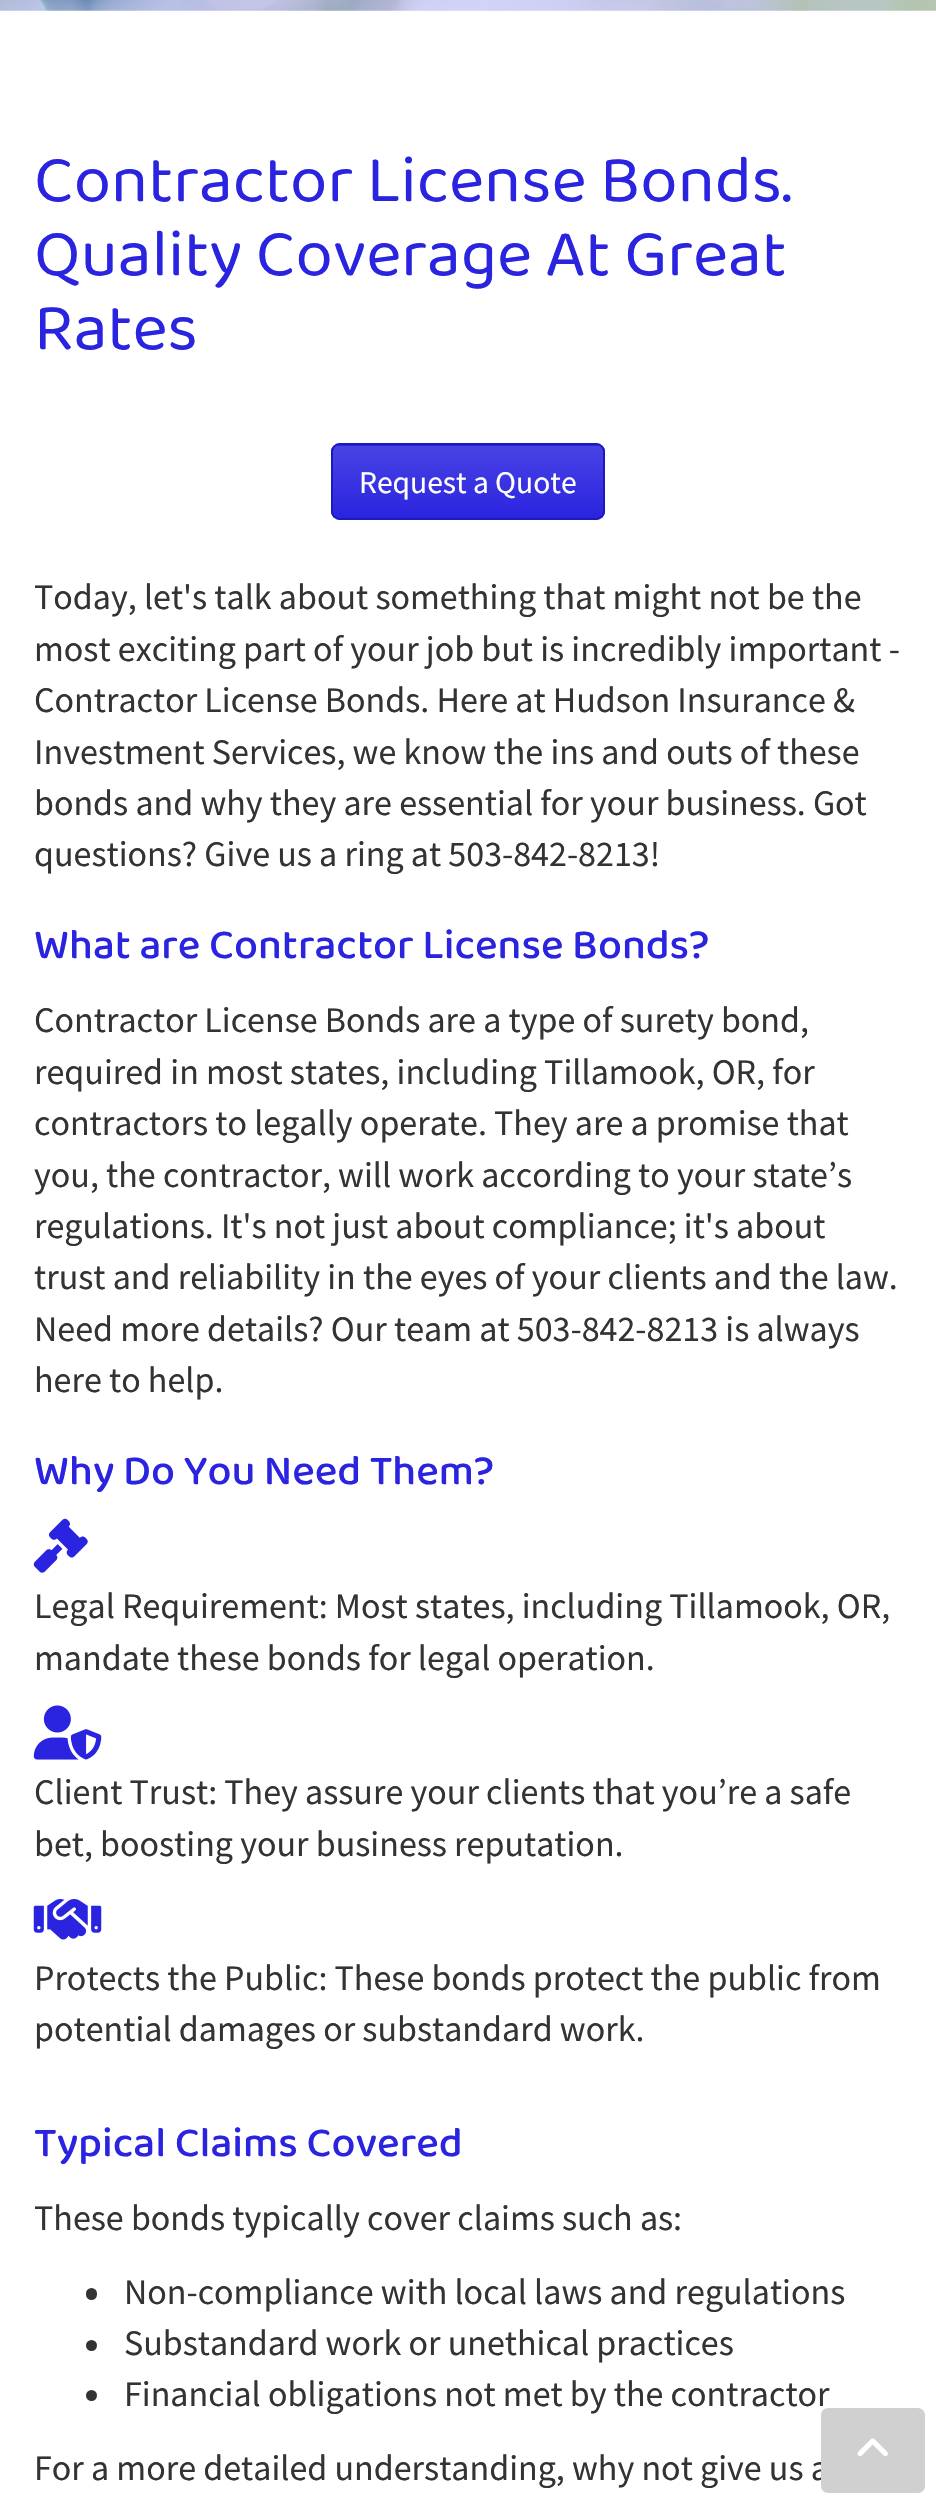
void draw(SkCanvas* c) {
SkPaint p;
p.setAntiAlias(true);
auto F=[&](const char* family, int weight, float size, bool italic = false){SkFontStyle style(weight, SkFontStyle::kNormal_Width,italic ? SkFontStyle::kItalic_Slant : SkFontStyle::kUpright_Slant);SkFont result(fontMgr->matchFamilyStyle(family, style), size);result.setSubpixel(true);return result;};
auto T=[&](const char* s, float x, float y, const SkFont& font){c->drawString(s, x, y, font, p);};
auto R=[&](float x, float y, float w, float h){c->drawRect(SkRect::MakeXYWH(x, y, w, h), p);};
auto Q=[&](float x, float y, float w, float h, float radius){c->drawRoundRect(SkRect::MakeXYWH(x, y, w, h), radius, radius, p);};
auto I=[&](const char* path, float x, float y, float w, float h){auto image = SkImages::DeferredFromEncodedData(SkData::MakeFromFileName(path));c->drawImageRect(image, SkRect::MakeXYWH(x, y, w, h), SkSamplingOptions());};
auto P=[&](const char* data, bool evenOdd = false){SkPath result = *SkParsePath::FromSVGString(data);if (evenOdd) result.setFillType(SkPathFillType::kEvenOdd);return result;};
c->clear(0xffffffff);
I("1.png",0,0,936,11);
auto f1 = F("Baloo 2",400,67.5);
p.setColor(0xff2a24e0);
T("Contractor License Bonds.",34,201,f1);
T("Quality Coverage At Great",34,275,f1);
T("Rates",34,349,f1);
Q(331,443,274,77,9);
c->save();
c->clipPath(P("M340 443h256c5 0 9 4 9 9v59c0 5-4 9-9 9h-256c-5 0-9-4-9-9v-59c0-5 4-9 9-9z"),true);
{
const SkColor colors[] = {0xff4843e4,0xff2a24e0};
const float stops[] = {0,1};
const SkPoint ends[] = {{468,446}, {468,518}};
p.setShader(SkGradientShader::MakeLinear(ends, colors, stops, 2, SkTileMode::kClamp));
p.setAlpha(255);
}
R(331,446,274,72);
c->restore();
p.setStroke(true);
p.setStrokeWidth(2);
p.setShader(nullptr);
p.setColor(0xff1f1ab7);
c->drawRoundRect(SkRect::MakeXYWH(332,444,272,75),8,8,p);
auto f2 = F("Source Sans Pro",400,31.5);
p.setStroke(false);
p.setColor(0xffffffff);
T("Request a Quote",359,493,f2);
auto f3 = F("Source Sans Pro",400,36);
p.setColor(0xff333333);
T("Today, let's talk about something that might not be the",34,609,f3);
T("most exciting part of your job but is incredibly important -",34,661,f3);
T("Contractor License Bonds. Here at Hudson Insurance &",34,712,f3);
T("Investment Services, we know the ins and outs of these",34,764,f3);
T("bonds and why they are essential for your business. Got",34,815,f3);
T("questions? Give us a ring at 503-842-8213!",34,866,f3);
auto f4 = F("Baloo 2",500,42.75);
p.setColor(0xff2a24e0);
T("What are Contractor License Bonds?",34,958,f4);
p.setColor(0xff333333);
T("Contractor License Bonds are a type of surety bond,",34,1032,f3);
T("required in most states, including Tillamook, OR, for",34,1084,f3);
T("contractors to legally operate. They are a promise that",34,1135,f3);
T("you, the contractor, will work according to your state’s",34,1187,f3);
T("regulations. It's not just about compliance; it's about",34,1238,f3);
T("trust and reliability in the eyes of your clients and the law.",34,1289,f3);
T("Need more details? Our team at 503-842-8213 is always",34,1341,f3);
T("here to help.",34,1392,f3);
p.setColor(0xff2a24e0);
T("Why Do You Need Them?",34,1484,f4);
I("2.png",33,1518,55,55);
p.setColor(0xff333333);
T("Legal Requirement: Most states, including Tillamook, OR,",34,1618,f3);
T("mandate these bonds for legal operation.",34,1670,f3);
I("3.png",33,1705,69,55);
T("Client Trust: They assure your clients that you’re a safe",34,1804,f3);
T("bet, boosting your business reputation.",34,1856,f3);
I("4.png",33,1899,69,41);
T("Protects the Public: These bonds protect the public from",34,1990,f3);
T("potential damages or substandard work.",34,2041,f3);
p.setColor(0xff2a24e0);
T("Typical Claims Covered",34,2156,f4);
p.setColor(0xff333333);
T("These bonds typically cover claims such as:",34,2230,f3);
Q(86,2288,11,12,5.5);
T("Non-compliance with local laws and regulations",124,2304,f3);
c->drawCircle(91.5,2345.5,5.5,p);
T("Substandard work or unethical practices",124,2355,f3);
c->drawCircle(91.5,2395.5,5.5,p);
T("Financial obligations not met by the contractor",124,2406,f3);
T("For a more detailed understanding, why not give us a",34,2480,f3);
p.setColor(0xffd0d0d0);
Q(821,2408,104,85,7);
I("5.png",857,2438,31,19);
}
